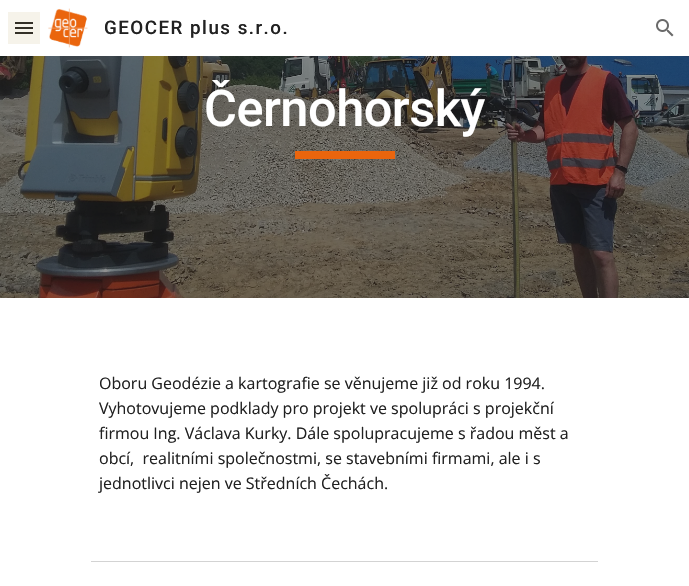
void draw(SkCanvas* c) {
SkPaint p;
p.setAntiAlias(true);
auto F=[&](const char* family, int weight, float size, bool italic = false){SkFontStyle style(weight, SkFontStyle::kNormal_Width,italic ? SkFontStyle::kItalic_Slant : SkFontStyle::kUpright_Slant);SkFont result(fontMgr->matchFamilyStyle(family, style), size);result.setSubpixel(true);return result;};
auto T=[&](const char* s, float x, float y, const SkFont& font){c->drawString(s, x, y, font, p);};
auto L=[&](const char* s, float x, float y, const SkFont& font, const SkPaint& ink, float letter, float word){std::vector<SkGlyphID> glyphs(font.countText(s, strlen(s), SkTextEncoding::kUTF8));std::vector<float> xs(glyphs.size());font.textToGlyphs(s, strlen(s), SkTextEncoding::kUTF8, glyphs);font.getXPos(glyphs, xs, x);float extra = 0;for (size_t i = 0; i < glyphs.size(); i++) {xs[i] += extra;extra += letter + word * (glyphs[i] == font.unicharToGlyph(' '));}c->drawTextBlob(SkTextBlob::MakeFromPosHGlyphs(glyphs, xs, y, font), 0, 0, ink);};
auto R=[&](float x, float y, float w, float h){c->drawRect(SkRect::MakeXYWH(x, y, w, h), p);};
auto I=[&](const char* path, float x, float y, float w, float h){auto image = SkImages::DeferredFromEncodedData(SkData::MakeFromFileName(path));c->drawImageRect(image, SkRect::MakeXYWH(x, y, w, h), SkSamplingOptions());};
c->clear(0xffffffff);
p.setColor(0xff212121);
R(15,22,18,2);
R(15,27,18,2);
R(15,32,18,2);
p.setColor(0x1fb79951);
R(8,12,32,32);
I("1.png",48,8,40,40);
auto f1 = F("Roboto",500,18.75);
p.setColor(0xff212121);
L("GEOCER plus s.r.o.",104,34,f1,p,1.5,0);
I("2.png",656,19,18,18);
I("3.png",0,56,689,242);
auto f2 = F("Roboto",500,50.5);
p.setColor(0xffffffff);
L("Černohorský",204,126,f2,p,-.5,0);
p.setColor(0xffea650d);
R(295,151,100,8);
auto f3 = F("Open Sans",400,16);
p.setColor(0xff212121);
T("Oboru Geodézie a kartografie se věnujeme již od roku 1994.",99,389,f3);
T("Vyhotovujeme podklady pro projekt ve spolupráci s projekční",99,414,f3);
T("firmou Ing. Václava Kurky. Dále spolupracujeme s řadou měst a",99,439,f3);
T("obcí,  realitními společnostmi, se stavebními firmami, ale i s",99,464,f3);
T("jednotlivci nejen ve Středních Čechách.",99,489,f3);
p.setColor(0xffd3d3d3);
R(91,561,507,1);
}
